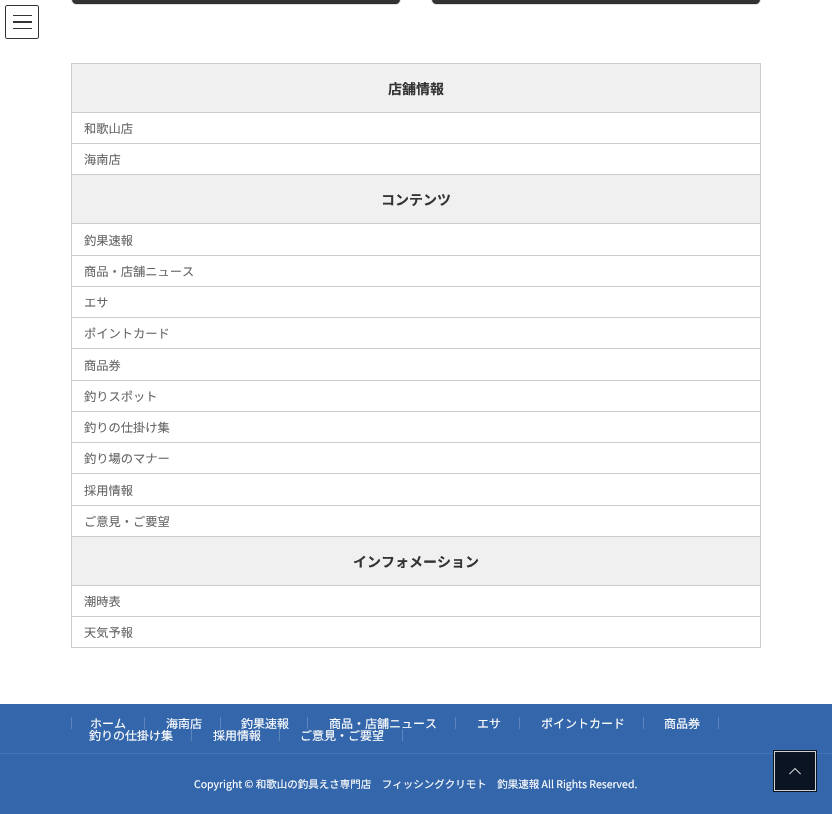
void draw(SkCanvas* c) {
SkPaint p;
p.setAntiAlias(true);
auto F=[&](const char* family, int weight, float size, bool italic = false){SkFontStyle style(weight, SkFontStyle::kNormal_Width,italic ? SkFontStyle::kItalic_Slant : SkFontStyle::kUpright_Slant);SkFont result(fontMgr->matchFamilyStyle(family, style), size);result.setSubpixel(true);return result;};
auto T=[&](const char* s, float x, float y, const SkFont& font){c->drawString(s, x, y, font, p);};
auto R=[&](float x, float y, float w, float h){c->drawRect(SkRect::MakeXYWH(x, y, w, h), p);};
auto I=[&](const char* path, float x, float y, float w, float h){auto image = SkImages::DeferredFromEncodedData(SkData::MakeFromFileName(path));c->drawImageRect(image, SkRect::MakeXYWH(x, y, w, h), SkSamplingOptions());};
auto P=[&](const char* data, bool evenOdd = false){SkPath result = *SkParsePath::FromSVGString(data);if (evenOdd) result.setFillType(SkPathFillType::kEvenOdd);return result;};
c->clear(0xffffffff);
p.setColor(0xff333333);
R(13,15,19,1);
R(13,21,19,2);
R(13,28,19,1);
p.setStroke(true);
p.setStrokeWidth(1);
c->drawRoundRect(SkRect::MakeXYWH(5.5,5.5,33,33),1.5,1.5,p);
p.setColor(0xffdfdfdf);
c->drawRoundRect(SkRect::MakeXYWH(71.5,-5.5,329,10),4.5,4.5,p);
c->save();
c->clipPath(P("M76-161h320c2 0 4 2 4 4v157c0 2-2 4-4 4h-320c-2 0-4-2-4-4v-157c0-2 2-4 4-4z"),true);
p.setStroke(false);
p.setColor(0xffe5e5e5);
R(72,3,328,1);
c->restore();
p.setColor(0xcc000000);
c->drawPath(P("M72-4h328v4c0 2-2 4-4 4h-320c-2 0-4-2-4-4z"),p);
p.setStroke(true);
p.setColor(0xffdfdfdf);
c->drawRoundRect(SkRect::MakeXYWH(431.5,-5.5,329,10),4.5,4.5,p);
c->save();
c->clipPath(P("M436-161h320c2 0 4 2 4 4v157c0 2-2 4-4 4h-320c-2 0-4-2-4-4v-157c0-2 2-4 4-4z"),true);
p.setStroke(false);
p.setColor(0xffe5e5e5);
R(432,3,328,1);
c->restore();
p.setColor(0xcc000000);
c->drawPath(P("M432-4h328v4c0 2-2 4-4 4h-320c-2 0-4-2-4-4z"),p);
p.setColor(0xffcccccc);
R(71,63,690,1);
R(760,63,1,585);
R(71,647,690,1);
R(71,63,1,585);
p.setColor(0xfff0f0f0);
R(72,64,688,48);
auto f1 = F("Noto Sans JP",700,14);
p.setColor(0xff333333);
T("店舗情報",388,94,f1);
p.setColor(0xffcccccc);
R(71,112,690,1);
auto f2 = F("Noto Sans JP",400,12.25);
p.setColor(0xff666666);
T("和歌山店",84,133,f2);
p.setColor(0xffcccccc);
R(71,143,690,1);
p.setColor(0xff666666);
T("海南店",84,164,f2);
p.setColor(0xfff0f0f0);
R(72,175,688,48);
p.setColor(0xffcccccc);
R(71,174,690,1);
p.setColor(0xff333333);
T("コンテンツ",381,205,f1);
p.setColor(0xffcccccc);
R(71,223,690,1);
p.setColor(0xff666666);
T("釣果速報",84,245,f2);
p.setColor(0xffcccccc);
R(71,255,690,1);
p.setColor(0xff666666);
T("商品・店舗ニュース",84,276,f2);
p.setColor(0xffcccccc);
R(71,286,690,1);
p.setColor(0xff666666);
T("エサ",84,307,f2);
p.setColor(0xffcccccc);
R(71,317,690,1);
p.setColor(0xff666666);
T("ポイントカード",84,338,f2);
p.setColor(0xffcccccc);
R(71,348,690,1);
p.setColor(0xff666666);
T("商品券",84,370,f2);
p.setColor(0xffcccccc);
R(71,380,690,1);
p.setColor(0xff666666);
T("釣りスポット",84,401,f2);
p.setColor(0xffcccccc);
R(71,411,690,1);
p.setColor(0xff666666);
T("釣りの仕掛け集",84,432,f2);
p.setColor(0xffcccccc);
R(71,442,690,1);
p.setColor(0xff666666);
T("釣り場のマナー",84,463,f2);
p.setColor(0xffcccccc);
R(71,473,690,1);
p.setColor(0xff666666);
T("採用情報",84,495,f2);
p.setColor(0xffcccccc);
R(71,505,690,1);
p.setColor(0xff666666);
T("ご意見・ご要望",84,526,f2);
p.setColor(0xfff0f0f0);
R(72,537,688,48);
p.setColor(0xffcccccc);
R(71,536,690,1);
p.setColor(0xff333333);
T("インフォメーション",353,567,f1);
p.setColor(0xffcccccc);
R(71,585,690,1);
p.setColor(0xff666666);
T("潮時表",84,606,f2);
p.setColor(0xffcccccc);
R(71,616,690,1);
p.setColor(0xff666666);
T("天気予報",84,637,f2);
p.setColor(0xff3366aa);
R(0,704,832,110);
p.setColor(0xff0a1422);
R(775,752,40,38);
p.setColor(0xff4775b3);
R(0,753,832,1);
p.setColor(0xff0e1724);
R(775,753,40,1);
p.setColor(0xff5c85bb);
R(144,717,1,12);
R(71,717,1,12);
auto f3 = F("Noto Sans JP",400,12);
p.setColor(0xffffffff);
T("ホーム",90,728,f3);
p.setColor(0xff5c85bb);
R(220,717,1,12);
p.setColor(0xffffffff);
T("海南店",166,728,f3);
p.setColor(0xff5c85bb);
R(307,717,1,12);
p.setColor(0xffffffff);
T("釣果速報",241,728,f3);
p.setColor(0xff5c85bb);
R(455,717,1,12);
p.setColor(0xffffffff);
T("商品・店舗ニュース",329,728,f3);
p.setColor(0xff5c85bb);
R(519,717,1,12);
p.setColor(0xffffffff);
T("エサ",477,728,f3);
p.setColor(0xff5c85bb);
R(643,717,1,12);
p.setColor(0xffffffff);
T("ポイントカード",541,728,f3);
p.setColor(0xff5c85bb);
R(718,717,1,12);
p.setColor(0xffffffff);
T("商品券",664,728,f3);
p.setColor(0xff5c85bb);
R(191,729,1,12);
p.setColor(0xffffffff);
T("釣りの仕掛け集",89,740,f3);
p.setColor(0xff5c85bb);
R(279,729,1,12);
p.setColor(0xffffffff);
T("採用情報",213,740,f3);
p.setColor(0xff5c85bb);
R(402,729,1,12);
p.setColor(0xffffffff);
T("ご意見・ご要望",300,740,f3);
auto f4 = F("Noto Sans JP",400,10.5);
T("Copyright © 和歌山の釣具えさ専門店　フィッシングクリモト　釣果速報 All Rights Reserved.",194,788,f4);
p.setStroke(true);
p.setStrokeWidth(2);
p.setColor(0xcc000000);
c->drawRect(SkRect::MakeXYWH(774,751,42,40),p);
p.setStrokeWidth(1);
p.setColor(0xccffffff);
c->drawRect(SkRect::MakeXYWH(774.5,751.5,41,39),p);
I("1.png",789,768,12,7);
}
